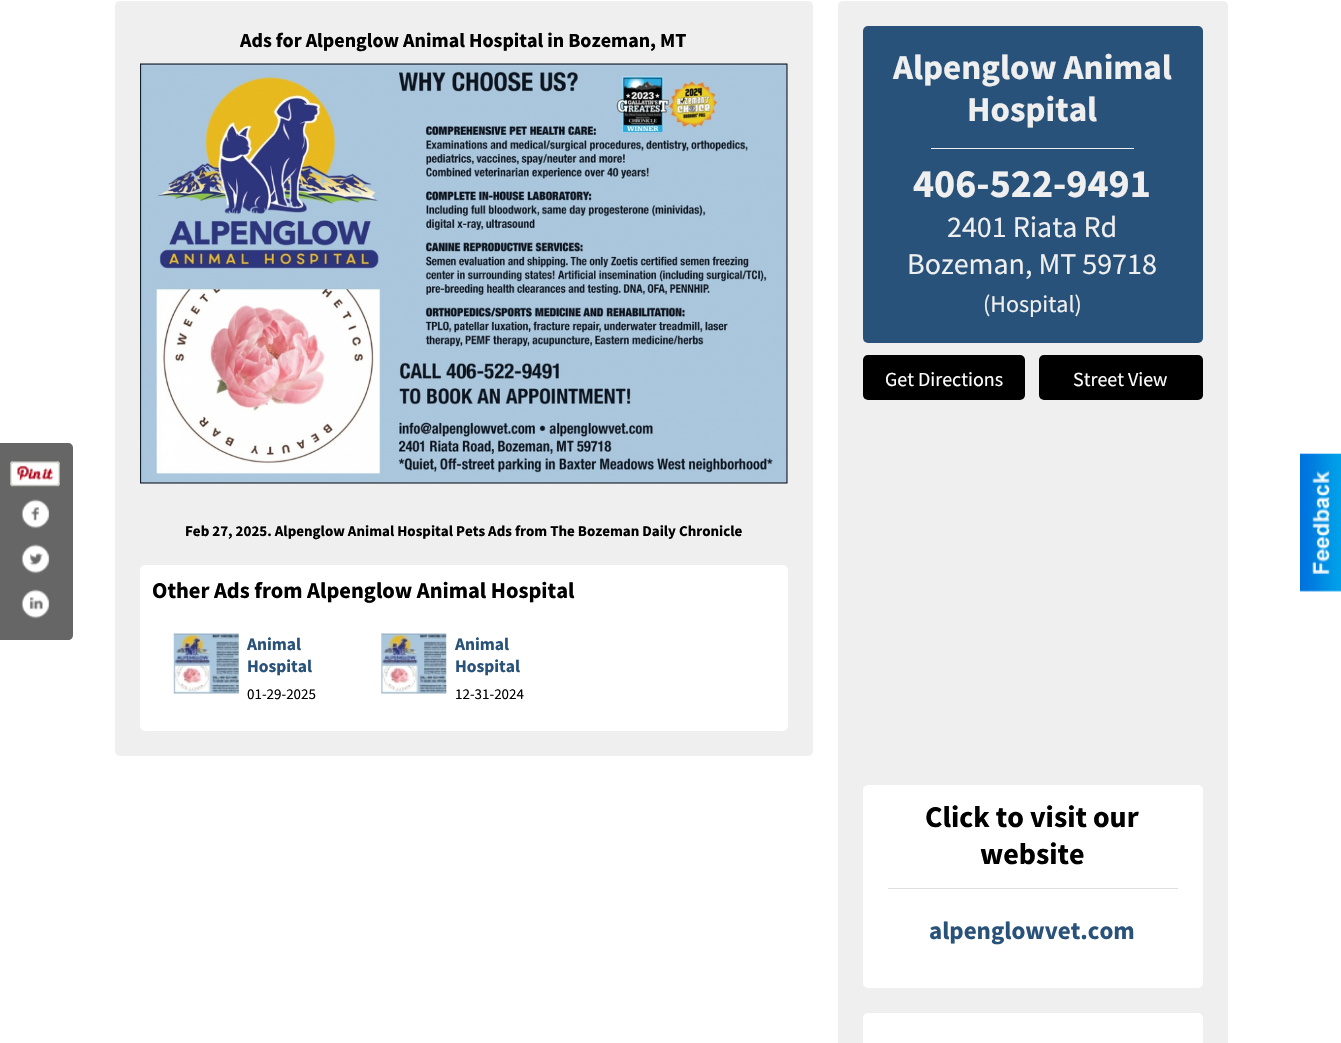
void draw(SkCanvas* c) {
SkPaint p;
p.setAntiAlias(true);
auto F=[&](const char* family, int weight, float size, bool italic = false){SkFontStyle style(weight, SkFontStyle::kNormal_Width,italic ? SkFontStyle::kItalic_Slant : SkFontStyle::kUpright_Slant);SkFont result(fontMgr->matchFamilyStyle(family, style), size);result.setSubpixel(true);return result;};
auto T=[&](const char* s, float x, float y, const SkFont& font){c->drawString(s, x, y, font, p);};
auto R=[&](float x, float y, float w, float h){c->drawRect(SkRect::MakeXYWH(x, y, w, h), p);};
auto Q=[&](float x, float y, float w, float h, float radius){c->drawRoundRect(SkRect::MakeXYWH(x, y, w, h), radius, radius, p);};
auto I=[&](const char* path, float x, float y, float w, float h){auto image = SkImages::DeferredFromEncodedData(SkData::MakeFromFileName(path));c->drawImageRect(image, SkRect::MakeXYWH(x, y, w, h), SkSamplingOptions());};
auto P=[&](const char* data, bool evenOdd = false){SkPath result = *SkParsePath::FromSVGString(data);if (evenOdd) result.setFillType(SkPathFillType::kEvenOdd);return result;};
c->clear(0xffffffff);
p.setColor(0xff666666);
c->drawPath(P("M0 443h68c3 0 5 2 5 5v187c0 3-2 5-5 5h-68z"),p);
I("1.png",10,461,50,26);
I("2.png",21,499,29,30);
I("3.png",21,544,29,30);
I("4.png",21,589,29,30);
p.setColor(0xffefefef);
Q(115,1,698,755,5);
auto f1 = F("Source Sans Pro",700,20);
p.setColor(0xff000000);
T("Ads for Alpenglow Animal Hospital in Bozeman, MT",240,47,f1);
I("5.png",140,63,648,421);
auto f2 = F("Source Sans Pro",700,15);
T("Feb 27, 2025. Alpenglow Animal Hospital Pets Ads from The Bozeman Daily Chronicle",185,536,f2);
p.setColor(0xffffffff);
Q(140,565,648,166,5);
auto f3 = F("Source Sans Pro",700,22.5);
p.setColor(0xff000000);
T("Other Ads from Alpenglow Animal Hospital",152,598,f3);
I("6.png",173,633,66,61);
auto f4 = F("Source Sans Pro",700,17.5);
p.setColor(0xff29527a);
T("Animal",247,650,f4);
T("Hospital",247,672,f4);
auto f5 = F("Source Sans Pro",400,15);
p.setColor(0xff000000);
T("01-29-2025",247,699,f5);
I("7.png",381,633,66,61);
p.setColor(0xff29527a);
T("Animal",455,650,f4);
T("Hospital",455,672,f4);
p.setColor(0xff000000);
T("12-31-2024",455,699,f5);
p.setColor(0xffefefef);
Q(838,1,390,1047,5);
p.setColor(0xff29527a);
Q(863,26,340,317,5);
auto f6 = F("Source Sans Pro",700,35);
p.setColor(0xffefefef);
T("Alpenglow Animal",893,79,f6);
T("Hospital",967,121,f6);
R(931,148,203,1);
auto f7 = F("Source Sans Pro",700,40);
T("406-522-9491",913,197,f7);
auto f8 = F("Source Sans Pro",400,30);
T("2401 Riata Rd",947,237,f8);
T("Bozeman, MT 59718",907,274,f8);
auto f9 = F("Source Sans Pro",400,24);
T("(Hospital)",983,312,f9);
p.setColor(0xff000000);
Q(863,355,162,45,5);
auto f10 = F("Source Sans Pro",400,20);
p.setColor(0xffffffff);
T("Get Directions",885,386,f10);
p.setColor(0xff000000);
Q(1039,355,164,45,5);
p.setColor(0xffffffff);
T("Street View",1073,386,f10);
Q(863,785,340,203,5);
p.setColor(0xffdfdfdf);
R(888,888,290,1);
auto f11 = F("Source Sans Pro",700,30);
p.setColor(0xff000000);
T("Click to visit our",925,827,f11);
T("website",980,864,f11);
auto f12 = F("Source Sans Pro",700,25);
p.setColor(0xff29527a);
T("alpenglowvet.com",929,939,f12);
p.setColor(0xffffffff);
Q(863,1013,340,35,5);
I("8.png",1300,453,41,139);
}
